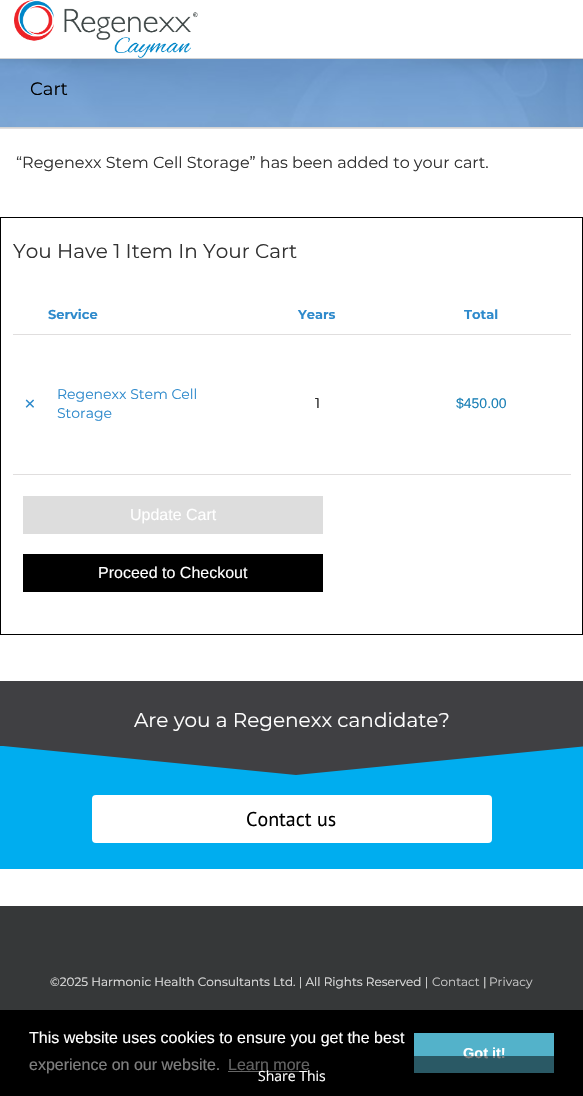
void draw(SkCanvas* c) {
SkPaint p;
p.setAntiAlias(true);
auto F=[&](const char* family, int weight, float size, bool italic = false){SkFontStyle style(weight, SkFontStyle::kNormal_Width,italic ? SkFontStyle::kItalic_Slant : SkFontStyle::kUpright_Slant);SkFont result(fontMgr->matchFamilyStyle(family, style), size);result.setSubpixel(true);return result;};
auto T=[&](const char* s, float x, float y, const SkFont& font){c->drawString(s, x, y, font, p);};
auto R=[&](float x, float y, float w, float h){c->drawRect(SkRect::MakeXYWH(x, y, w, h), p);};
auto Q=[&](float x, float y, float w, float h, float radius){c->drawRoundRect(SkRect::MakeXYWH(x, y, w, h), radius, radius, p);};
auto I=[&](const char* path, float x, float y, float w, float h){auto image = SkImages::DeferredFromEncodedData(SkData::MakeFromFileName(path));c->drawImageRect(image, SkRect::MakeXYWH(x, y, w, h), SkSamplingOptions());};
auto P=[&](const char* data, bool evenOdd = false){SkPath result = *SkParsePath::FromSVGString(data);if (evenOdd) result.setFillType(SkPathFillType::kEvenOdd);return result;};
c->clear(0xffffffff);
I("1.png",14,0,184,58);
I("2.png",0,59,583,68);
p.setColor(0xffd2d3d4);
R(0,58,583,1);
R(0,127,583,1);
auto f1 = F("Montserrat",400,18);
p.setColor(0xff000000);
T("Cart",30,95,f1);
p.setColor(0xffe0dede);
R(0,128,583,1);
auto f2 = F("Montserrat",400,16);
p.setColor(0xff333333);
T("“Regenexx Stem Cell Storage” has been added to your cart.",16,168,f2);
p.setStroke(true);
p.setStrokeWidth(1);
p.setColor(0xff000000);
c->drawRect(SkRect::MakeXYWH(.5,217.5,582,417),p);
auto f3 = F("Montserrat",400,20);
p.setStroke(false);
p.setColor(0xff333333);
T("You Have 1 Item In Your Cart",13,258,f3);
p.setColor(0xffe0dede);
R(13,334,558,1);
auto f4 = F("Montserrat",700,13);
p.setColor(0xff2e8acc);
T("Service",48,319,f4);
T("Years",298,319,f4);
T("Total",464,319,f4);
p.setColor(0xffe0dede);
R(13,474,558,1);
auto f5 = F("Montserrat",400,24);
p.setColor(0xff2e8acc);
T("×",23,412,f5);
auto f6 = F("Montserrat",400,14);
T("Regenexx Stem Cell",57,399,f6);
T("Storage",57,418,f6);
p.setColor(0xff000000);
T("1",315,408,f6);
auto f7 = F("Liberation Sans",400,14);
p.setColor(0xff1a80b6);
T("$450.00",456,408,f7);
p.setColor(0xffdddddd);
R(23,496,300,38);
auto f8 = F("Liberation Sans",400,16);
p.setColor(0xffffffff);
T("Update Cart",130,520,f8);
p.setColor(0xff000000);
R(23,554,300,38);
p.setColor(0xffffffff);
T("Proceed to Checkout",98,578,f8);
p.setColor(0xff404043);
R(0,681,583,65);
p.setColor(0xffffffff);
T("Are you a Regenexx candidate?",134,727,f3);
p.setColor(0xff00adef);
R(0,746,583,123);
c->save();
c->clipRect(SkRect::MakeXYWH(0,746,583,29));
p.setColor(0xff404043);
c->drawPath(P("M-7 745l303 30l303-30z"),p);
c->restore();
p.setColor(0xffffffff);
Q(92,795,400,48,4);
auto f9 = F("PT Sans",400,20);
p.setColor(0xff000000);
T("Contact us",246,826,f9);
p.setColor(0xff363839);
R(0,906,583,104);
auto f10 = F("Montserrat",400,12);
p.setColor(0xffe0e0e0);
T("©2025 Harmonic Health Consultants Ltd. | All Rights Reserved |",50,986,f10);
p.setColor(0xffc7c7c7);
T("Contact",432,986,f10);
p.setColor(0xffe0e0e0);
T("|",483,986,f10);
p.setColor(0xffc7c7c7);
T("Privacy",489,986,f10);
p.setColor(0xff000000);
R(0,1010,583,86);
p.setColor(0xffffffff);
T("This website uses cookies to ensure you get the best",29,1043,f8);
T("experience on our website.",29,1070,f8);
p.setColor(0xffc7c7c7);
T("Learn more",228,1070,f8);
p.setColor(0xffcccccc);
R(228,1071,81,1);
p.setColor(0xff53b2ca);
R(414,1033,140,40);
auto f11 = F("Liberation Sans",700,14.5);
p.setColor(0xffffffff);
T("Got it!",463,1058,f11);
p.setColor(0x80000000);
R(29,1056,525,18);
auto f12 = F("Open Sans",400,14);
p.setColor(0xffffffff);
T("Share This",258,1081,f12);
}
